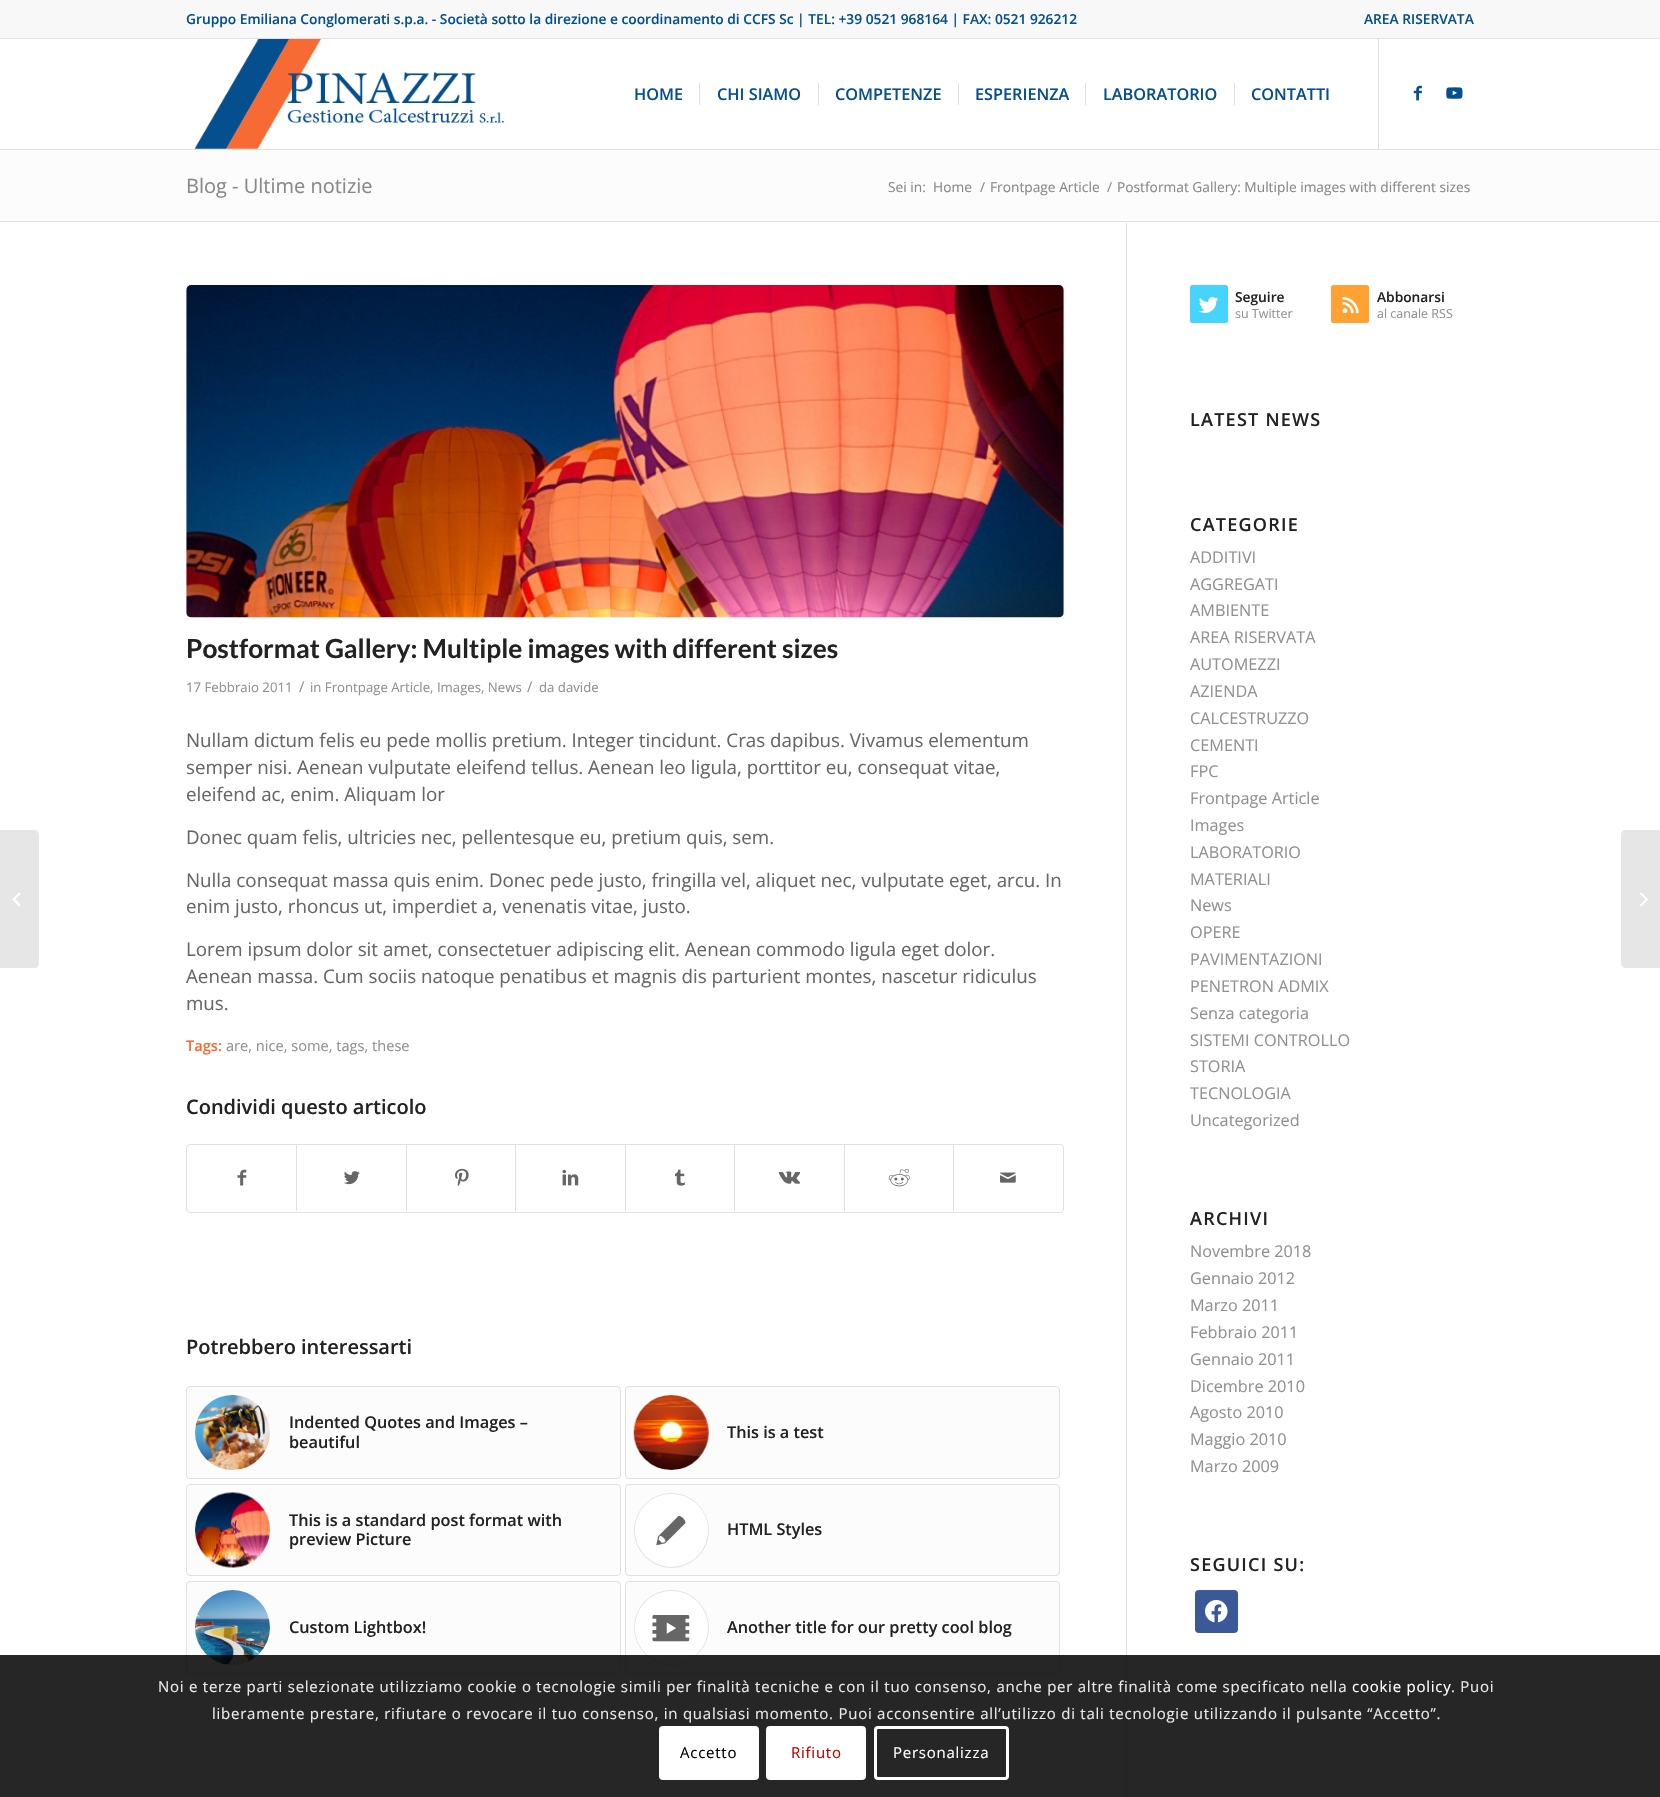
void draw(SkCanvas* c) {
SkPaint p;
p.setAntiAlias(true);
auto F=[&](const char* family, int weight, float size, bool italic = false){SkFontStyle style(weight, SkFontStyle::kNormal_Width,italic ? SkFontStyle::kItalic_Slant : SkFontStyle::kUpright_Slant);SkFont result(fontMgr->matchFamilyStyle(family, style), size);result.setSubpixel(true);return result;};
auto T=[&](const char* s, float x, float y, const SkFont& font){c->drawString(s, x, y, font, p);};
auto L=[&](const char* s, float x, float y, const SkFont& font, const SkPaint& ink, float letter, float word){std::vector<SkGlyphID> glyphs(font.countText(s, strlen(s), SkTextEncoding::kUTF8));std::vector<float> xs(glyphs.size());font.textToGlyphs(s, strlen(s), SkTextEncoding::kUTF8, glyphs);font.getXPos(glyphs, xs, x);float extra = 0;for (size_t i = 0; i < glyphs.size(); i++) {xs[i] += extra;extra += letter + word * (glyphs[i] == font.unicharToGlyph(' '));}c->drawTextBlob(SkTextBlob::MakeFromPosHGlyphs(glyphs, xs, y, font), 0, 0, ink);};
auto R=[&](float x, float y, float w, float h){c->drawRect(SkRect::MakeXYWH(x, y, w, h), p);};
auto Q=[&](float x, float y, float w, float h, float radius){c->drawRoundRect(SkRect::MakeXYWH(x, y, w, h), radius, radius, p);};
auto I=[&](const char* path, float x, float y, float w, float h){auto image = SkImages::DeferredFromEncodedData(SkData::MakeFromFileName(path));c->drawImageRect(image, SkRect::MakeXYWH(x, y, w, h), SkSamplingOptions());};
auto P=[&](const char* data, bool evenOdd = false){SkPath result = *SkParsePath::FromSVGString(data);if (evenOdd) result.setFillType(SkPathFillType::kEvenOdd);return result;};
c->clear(0xffffffff);
p.setColor(0xfff8f8f8);
R(0,0,1660,38);
p.setColor(0xffe1e1e1);
R(0,38,1660,1);
auto f1 = F("Open Sans",600,13.75);
p.setColor(0xff064f8e);
T("Gruppo Emiliana Conglomerati s.p.a. - Società sotto la direzione e coordinamento di CCFS Sc | TEL: +39 0521 968164 | FAX: 0521 926212",186,24,f1);
T("AREA RISERVATA",1364,24,f1);
p.setColor(0xffe1e1e1);
R(0,149,1660,1);
I("1.png",194,39,311,110);
R(1378,39,1,110);
auto f2 = F("Open Sans",600,16.25);
p.setColor(0xff064f8e);
T("HOME",634,100,f2);
T("CHI SIAMO",717,100,f2);
p.setColor(0xffe1e1e1);
R(699,83,1,22);
p.setColor(0xff064f8e);
T("COMPETENZE",835,100,f2);
p.setColor(0xffe1e1e1);
R(818,83,1,22);
p.setColor(0xff064f8e);
T("ESPERIENZA",975,100,f2);
p.setColor(0xffe1e1e1);
R(958,83,1,22);
p.setColor(0xff064f8e);
T("LABORATORIO",1103,100,f2);
p.setColor(0xffe1e1e1);
R(1085,83,1,22);
p.setColor(0xff064f8e);
T("CONTATTI",1251,100,f2);
p.setColor(0xffe1e1e1);
R(1234,83,1,22);
I("2.png",1413,85,9,16);
I("3.png",1446,87,17,12);
p.setColor(0xffe6e6e6);
c->drawPath(P("M0 830h34c3 0 5 2 5 5v128c0 3-2 5-5 5h-34z"),p);
I("4.png",12,892,9,15);
p.setColor(0xfffcfcfc);
R(0,150,1660,71);
auto f3 = F("Open Sans",400,20);
p.setColor(0xff888888);
T("Blog - Ultime notizie",186,193,f3);
auto f4 = F("Open Sans",400,13.75);
T("Sei in:",888,192,f4);
T("Home",933,192,f4);
T("/",980,192,f4);
T("Frontpage Article",990,192,f4);
T("/",1107,192,f4);
T("Postformat Gallery: Multiple images with different sizes",1117,192,f4);
p.setColor(0xffe1e1e1);
R(0,221,1660,1);
R(1126,223,1,1574);
I("5.png",186,285,878,333);
auto f5 = F("Lato",700,26.25);
p.setColor(0xff222222);
T("Postformat Gallery: Multiple images with different sizes",186,658,f5);
auto f6 = F("Open Sans",400,13.2);
p.setColor(0xff919191);
T("17 Febbraio 2011",186,692,f6);
auto f7 = F("Open Sans",400,14.6);
T("/",299,692,f7);
T("in Frontpage Article, Images, News",310,692,f6);
T("/",527,692,f7);
T("da davide",539,692,f6);
auto f8 = F("Open Sans",400,18.75);
p.setColor(0xff666666);
T("Nullam dictum felis eu pede mollis pretium. Integer tincidunt. Cras dapibus. Vivamus elementum",186,747,f8);
T("semper nisi. Aenean vulputate eleifend tellus. Aenean leo ligula, porttitor eu, consequat vitae,",186,774,f8);
T("eleifend ac, enim. Aliquam lor",186,801,f8);
T("Donec quam felis, ultricies nec, pellentesque eu, pretium quis, sem.",186,844,f8);
T("Nulla consequat massa quis enim. Donec pede justo, fringilla vel, aliquet nec, vulputate eget, arcu. In",186,887,f8);
T("enim justo, rhoncus ut, imperdiet a, venenatis vitae, justo.",186,913,f8);
T("Lorem ipsum dolor sit amet, consectetuer adipiscing elit. Aenean commodo ligula eget dolor.",186,956,f8);
T("Aenean massa. Cum sociis natoque penatibus et magnis dis parturient montes, nascetur ridiculus",186,983,f8);
T("mus.",186,1010,f8);
auto f9 = F("Open Sans",600,14.6);
p.setColor(0xfff76b34);
T("Tags:",186,1051,f9);
p.setColor(0xff919191);
T("are, nice, some, tags, these",226,1051,f7);
auto f10 = F("Open Sans",600,20);
p.setColor(0xff222222);
T("Condividi questo articolo",186,1114,f10);
p.setStroke(true);
p.setStrokeWidth(1);
p.setColor(0xffe1e1e1);
c->drawRoundRect(SkRect::MakeXYWH(186.5,1144.5,877,68),3.5,3.5,p);
I("6.png",237,1169,10,17);
p.setStroke(false);
R(296,1145,1,66);
I("7.png",344,1171,16,14);
R(406,1145,1,66);
I("8.png",455,1168,14,19);
R(515,1145,1,66);
I("9.png",562,1169,17,17);
R(625,1145,1,66);
I("10.png",675,1169,10,17);
R(734,1145,1,66);
I("11.png",778,1171,23,13);
R(844,1145,1,66);
I("12.png",888,1168,22,19);
R(953,1145,1,66);
I("13.png",1000,1172,16,11);
p.setColor(0xff222222);
T("Potrebbero interessarti",186,1354,f10);
p.setColor(0xfffcfcfc);
c->drawRoundRect(SkRect::MakeXYWH(186.5,1386.5,434,92),3.5,3.5,p);
p.setStroke(true);
p.setColor(0xffe1e1e1);
c->drawRoundRect(SkRect::MakeXYWH(186.5,1386.5,434,92),3.5,3.5,p);
I("14.png",195,1395,75,75);
p.setStroke(false);
p.setColor(0xff222222);
T("Indented Quotes and Images –",289,1428,f2);
T("beautiful",289,1448,f2);
p.setColor(0xfffcfcfc);
c->drawRoundRect(SkRect::MakeXYWH(625.5,1386.5,434,92),3.5,3.5,p);
p.setStroke(true);
p.setColor(0xffe1e1e1);
c->drawRoundRect(SkRect::MakeXYWH(625.5,1386.5,434,92),3.5,3.5,p);
I("15.png",633,1395,76,75);
p.setStroke(false);
p.setColor(0xff222222);
T("This is a test",727,1438,f2);
p.setColor(0xfffcfcfc);
c->drawRoundRect(SkRect::MakeXYWH(186.5,1484.5,434,91),3.5,3.5,p);
p.setStroke(true);
p.setColor(0xffe1e1e1);
c->drawRoundRect(SkRect::MakeXYWH(186.5,1484.5,434,91),3.5,3.5,p);
I("16.png",195,1492,75,76);
p.setStroke(false);
p.setColor(0xff222222);
T("This is a standard post format with",289,1526,f2);
T("preview Picture",289,1545,f2);
p.setColor(0xfffcfcfc);
c->drawRoundRect(SkRect::MakeXYWH(625.5,1484.5,434,91),3.5,3.5,p);
p.setStroke(true);
p.setColor(0xffe1e1e1);
c->drawRoundRect(SkRect::MakeXYWH(625.5,1484.5,434,91),3.5,3.5,p);
c->drawCircle(671.5,1530.5,37,p);
p.setStroke(false);
p.setColor(0xffffffff);
Q(635,1494,73,72,36);
I("17.png",656,1516,30,30);
p.setColor(0xff222222);
T("HTML Styles",727,1535,f2);
p.setColor(0xfffcfcfc);
c->drawRoundRect(SkRect::MakeXYWH(186.5,1581.5,434,92),3.5,3.5,p);
p.setStroke(true);
p.setColor(0xffe1e1e1);
c->drawRoundRect(SkRect::MakeXYWH(186.5,1581.5,434,92),3.5,3.5,p);
I("18.png",195,1590,75,75);
p.setStroke(false);
p.setColor(0xff222222);
T("Custom Lightbox!",289,1633,f2);
p.setColor(0xfffcfcfc);
c->drawRoundRect(SkRect::MakeXYWH(625.5,1581.5,434,92),3.5,3.5,p);
p.setStroke(true);
p.setColor(0xffe1e1e1);
c->drawRoundRect(SkRect::MakeXYWH(625.5,1581.5,434,92),3.5,3.5,p);
c->drawCircle(671.5,1627.5,37,p);
p.setStroke(false);
p.setColor(0xffffffff);
c->drawCircle(671.5,1627.5,36.5,p);
I("19.png",652,1615,38,27);
p.setColor(0xff222222);
T("Another title for our pretty cool blog",727,1633,f2);
p.setColor(0xff46d4fe);
Q(1190,285,38,38,2.5);
I("20.png",1199,297,20,16);
p.setColor(0xff222222);
T("Seguire",1235,302,f1);
auto f11 = F("Open Sans",400,12.5);
p.setColor(0xff919191);
T("su Twitter",1235,318,f11);
p.setColor(0xffffa133);
Q(1331,285,38,38,2.5);
I("21.png",1342,297,17,17);
p.setColor(0xff222222);
T("Abbonarsi",1377,302,f1);
p.setColor(0xff919191);
T("al canale RSS",1377,318,f11);
auto f12 = F("Open Sans",600,18);
p.setColor(0xff222222);
L("LATEST NEWS",1190,426,f12,p,1.25,0);
L("CATEGORIE",1190,531,f12,p,1.25,0);
auto f13 = F("Open Sans",400,16.25);
p.setColor(0xff919191);
T("ADDITIVI",1190,563,f13);
T("AGGREGATI",1190,590,f13);
T("AMBIENTE",1190,616,f13);
T("AREA RISERVATA",1190,643,f13);
T("AUTOMEZZI",1190,670,f13);
T("AZIENDA",1190,697,f13);
T("CALCESTRUZZO",1190,724,f13);
T("CEMENTI",1190,751,f13);
T("FPC",1190,777,f13);
T("Frontpage Article",1190,804,f13);
T("Images",1190,831,f13);
T("LABORATORIO",1190,858,f13);
T("MATERIALI",1190,885,f13);
T("News",1190,911,f13);
T("OPERE",1190,938,f13);
T("PAVIMENTAZIONI",1190,965,f13);
T("PENETRON ADMIX",1190,992,f13);
T("Senza categoria",1190,1019,f13);
T("SISTEMI CONTROLLO",1190,1046,f13);
T("STORIA",1190,1072,f13);
T("TECNOLOGIA",1190,1099,f13);
T("Uncategorized",1190,1126,f13);
p.setColor(0xff222222);
L("ARCHIVI",1190,1225,f12,p,1.25,0);
p.setColor(0xff919191);
T("Novembre 2018",1190,1257,f13);
T("Gennaio 2012",1190,1284,f13);
T("Marzo 2011",1190,1311,f13);
T("Febbraio 2011",1190,1338,f13);
T("Gennaio 2011",1190,1365,f13);
T("Dicembre 2010",1190,1392,f13);
T("Agosto 2010",1190,1418,f13);
T("Maggio 2010",1190,1445,f13);
T("Marzo 2009",1190,1472,f13);
p.setColor(0xff222222);
L("SEGUICI SU:",1190,1571,f12,p,1.25,0);
p.setColor(0xff3b5998);
Q(1195,1590,43,43,4);
I("22.png",1205,1600,23,23);
p.setColor(0xffe6e6e6);
c->drawPath(P("M1626 830h34v138h-34c-3 0-5-2-5-5v-128c0-3 2-5 5-5z"),p);
I("23.png",1640,892,8,15);
p.setColor(0xd9000000);
R(0,1655,1660,142);
auto f14 = F("Open Sans",400,15);
p.setColor(0xffe9e9e9);
L("Noi e terze parti selezionate utilizziamo cookie o tecnologie simili per finalità tecniche e con il tuo consenso, anche per altre finalità come specificato nella",158,1692,f14,p,.75,0);
p.setColor(0xffffffff);
L("cookie policy",1352,1692,f14,p,.75,0);
p.setColor(0xffe9e9e9);
L(". Puoi",1451,1692,f14,p,.75,0);
L("liberamente prestare, rifiutare o revocare il tuo consenso, in qualsiasi momento. Puoi acconsentire all’utilizzo di tali tecnologie utilizzando il pulsante “Accetto”.",212,1719,f14,p,.75,0);
p.setColor(0xffffffff);
Q(659,1726,100,54,4);
p.setColor(0xff000000);
L("Accetto",680,1758,f14,p,.75,0);
p.setColor(0xffffffff);
c->drawRoundRect(SkRect::MakeXYWH(767.5,1727.5,97,51),2.5,2.5,p);
p.setStroke(true);
p.setStrokeWidth(3);
c->drawRoundRect(SkRect::MakeXYWH(767.5,1727.5,97,51),2.5,2.5,p);
p.setStroke(false);
p.setColor(0xffc10000);
L("Rifiuto",791,1758,f14,p,.75,0);
p.setStroke(true);
p.setColor(0xffffffff);
c->drawRoundRect(SkRect::MakeXYWH(875.5,1727.5,132,51),2.5,2.5,p);
p.setStroke(false);
L("Personalizza",893,1758,f14,p,.75,0);
}
